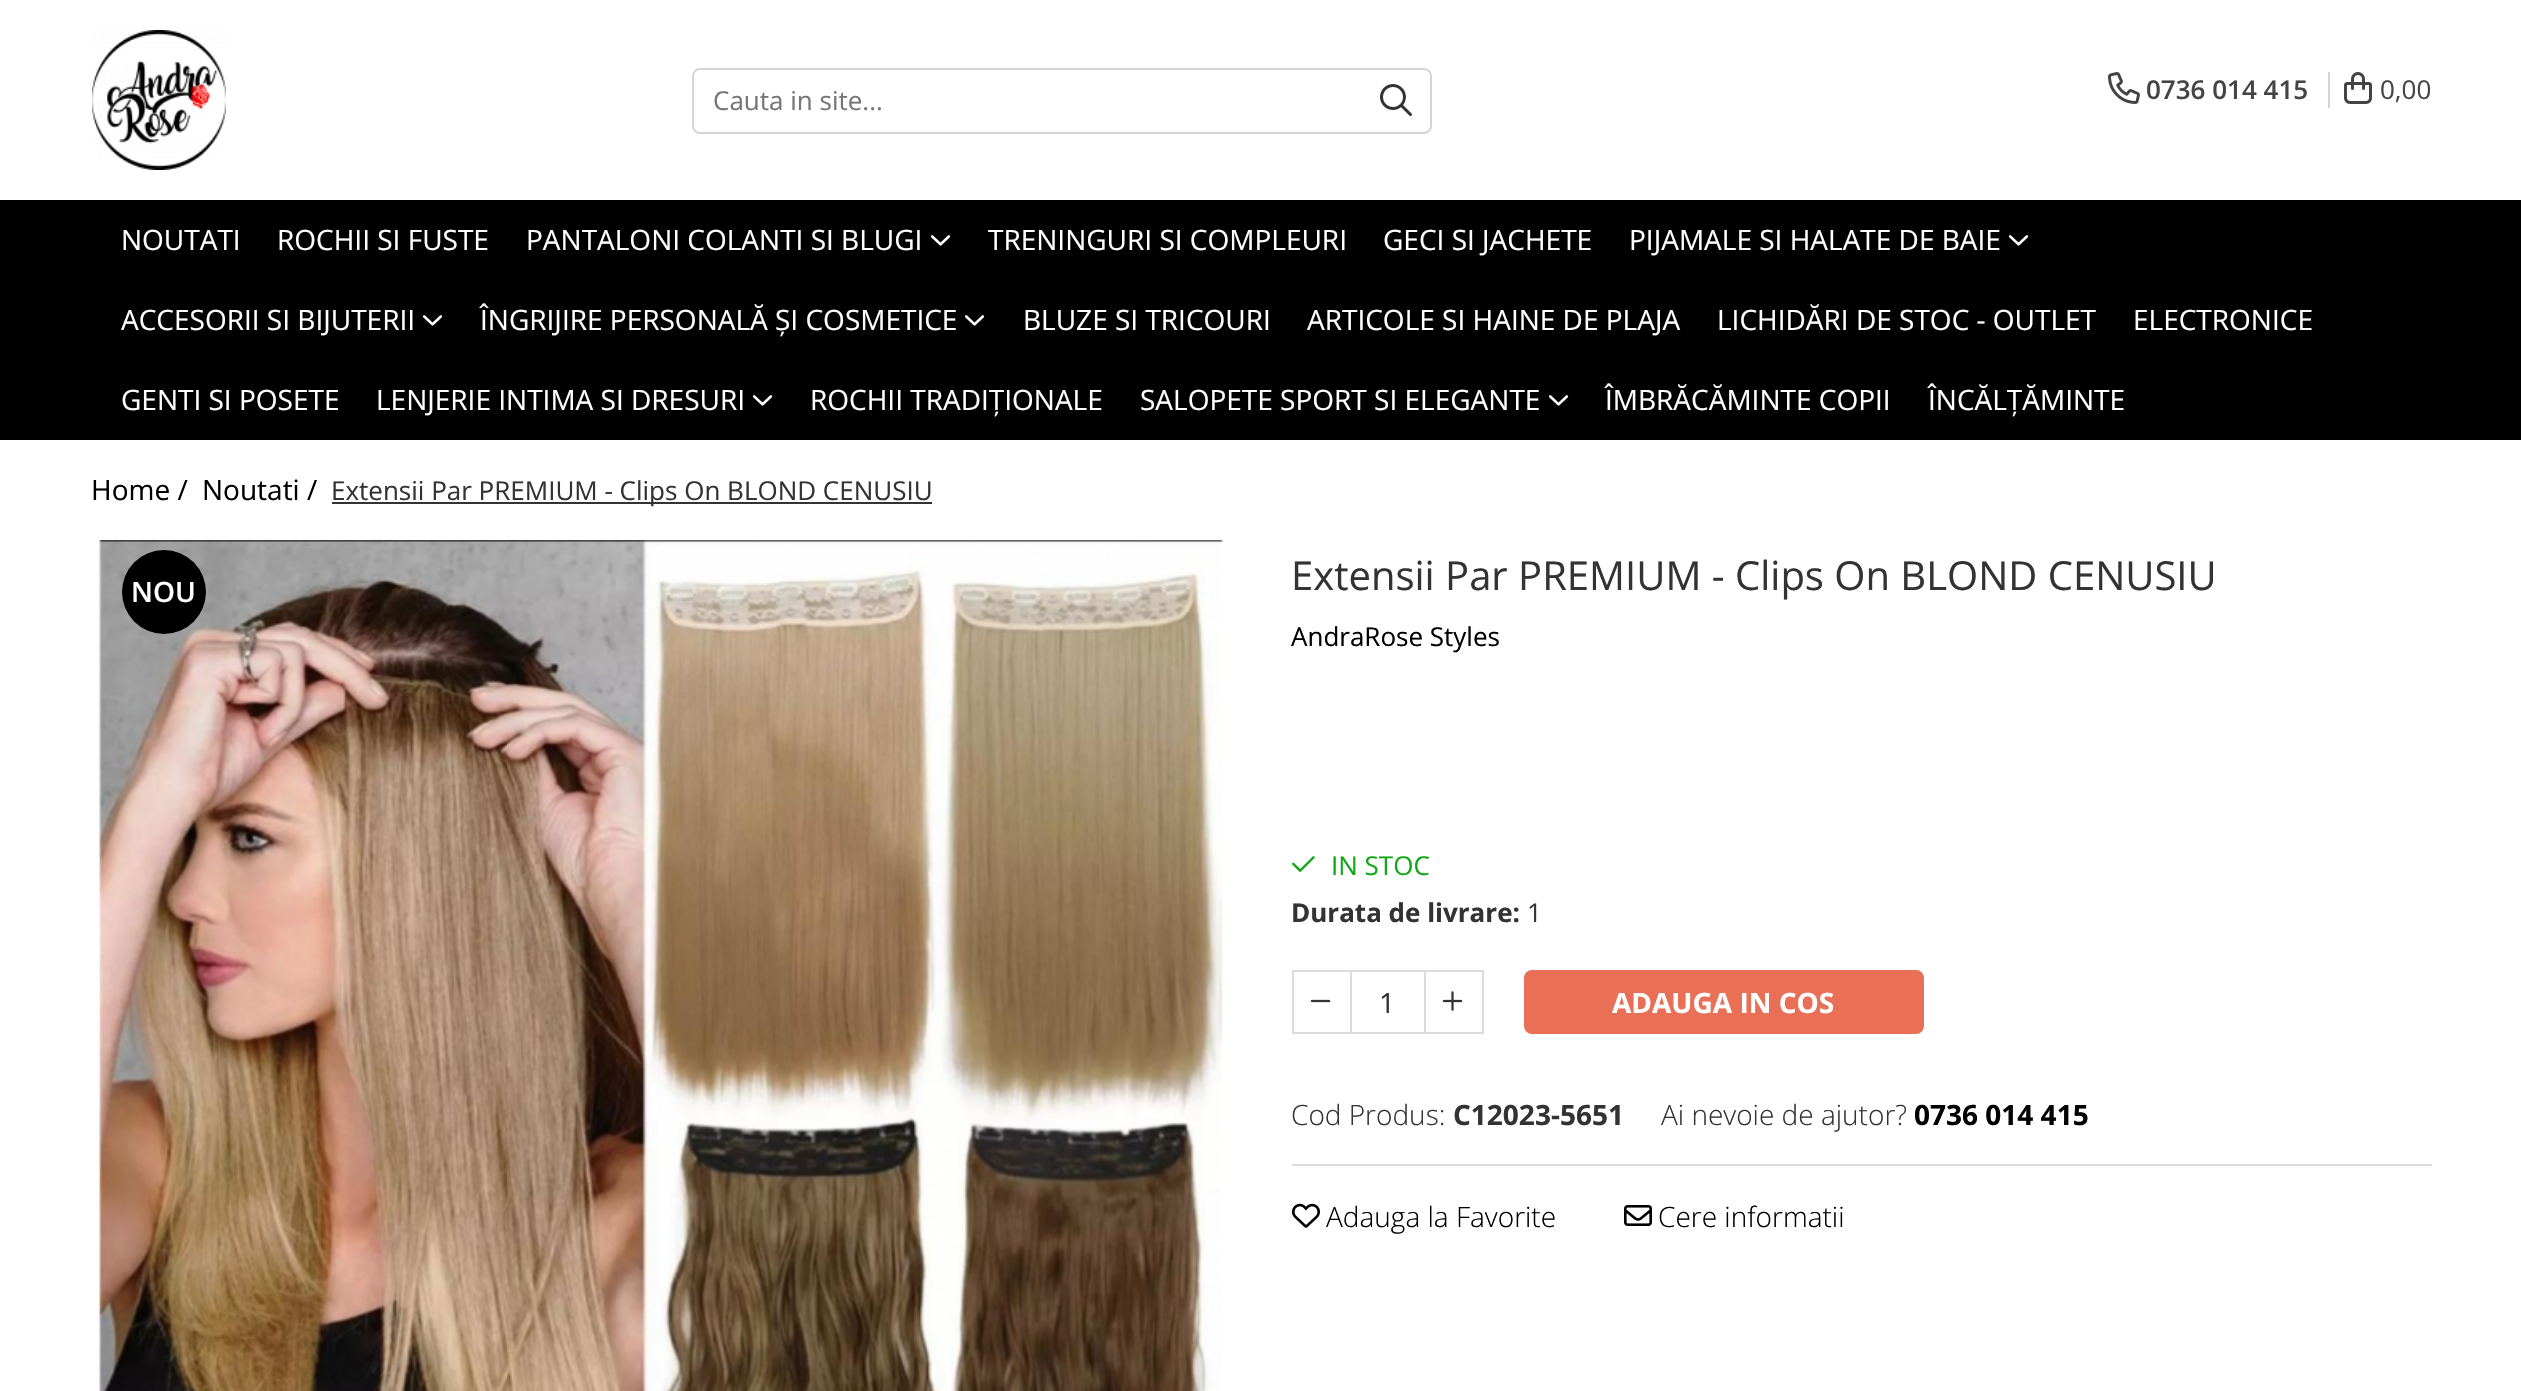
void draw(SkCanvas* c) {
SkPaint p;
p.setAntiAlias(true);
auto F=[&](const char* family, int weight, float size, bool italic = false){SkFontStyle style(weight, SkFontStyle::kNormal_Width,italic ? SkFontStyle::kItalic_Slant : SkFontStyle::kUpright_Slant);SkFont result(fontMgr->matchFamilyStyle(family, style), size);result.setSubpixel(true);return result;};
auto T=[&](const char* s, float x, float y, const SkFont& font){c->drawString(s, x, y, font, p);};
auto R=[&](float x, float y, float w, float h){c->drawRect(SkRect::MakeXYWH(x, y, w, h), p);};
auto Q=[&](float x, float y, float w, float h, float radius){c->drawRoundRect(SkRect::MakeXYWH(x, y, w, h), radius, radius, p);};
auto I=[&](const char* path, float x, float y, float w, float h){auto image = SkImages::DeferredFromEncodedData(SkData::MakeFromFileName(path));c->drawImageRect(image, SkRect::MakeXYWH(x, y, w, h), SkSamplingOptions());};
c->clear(0xffffffff);
I("1.png",92,30,134,140);
p.setStroke(true);
p.setStrokeWidth(2);
p.setColor(0xffd5d5d5);
c->drawRoundRect(SkRect::MakeXYWH(693,69,738,64),7,7,p);
auto f1 = F("Open Sans",400,26);
p.setStroke(false);
p.setColor(0xff757575);
T("Cauta in site...",713,110,f1);
I("2.png",1380,84,32,32);
I("3.png",2108,72,32,32);
auto f2 = F("Open Sans",600,26);
p.setColor(0xff444444);
T("0736 014 415",2146,99,f2);
p.setColor(0xffd5d5d5);
R(2328,72,2,36);
I("4.png",2344,72,28,32);
p.setColor(0xff444444);
T("0,00",2380,99,f1);
p.setColor(0xff000000);
R(0,200,2521,240);
auto f3 = F("Open Sans",400,28);
p.setColor(0xffffffff);
T("NOUTATI",121,250,f3);
T("ROCHII SI FUSTE",277,250,f3);
T("PANTALONI COLANTI SI BLUGI",526,250,f3);
I("5.png",930,235,21,11);
T("TRENINGURI SI COMPLEURI",988,250,f3);
T("GECI SI JACHETE",1383,250,f3);
T("PIJAMALE SI HALATE DE BAIE",1629,250,f3);
I("5.png",2008,235,21,11);
T("ACCESORII SI BIJUTERII",121,330,f3);
I("5.png",422,315,21,11);
T("ÎNGRIJIRE PERSONALĂ ȘI COSMETICE",480,330,f3);
I("5.png",964,315,21,11);
T("BLUZE SI TRICOURI",1023,330,f3);
T("ARTICOLE SI HAINE DE PLAJA",1307,330,f3);
T("LICHIDĂRI DE STOC - OUTLET",1717,330,f3);
T("ELECTRONICE",2133,330,f3);
T("GENTI SI POSETE",121,410,f3);
T("LENJERIE INTIMA SI DRESURI",376,410,f3);
I("5.png",752,395,21,11);
T("ROCHII TRADIȚIONALE",810,410,f3);
T("SALOPETE SPORT SI ELEGANTE",1140,410,f3);
I("5.png",1548,395,21,11);
T("ÎMBRĂCĂMINTE COPII",1605,410,f3);
T("ÎNCĂLȚĂMINTE",1928,410,f3);
p.setColor(0xff000000);
T("Home /",91,500,f3);
T("Noutati /",202,500,f3);
p.setColor(0xff333333);
R(332,502,600,2);
T("Extensii Par PREMIUM - Clips On BLOND CENUSIU",331,500,f1);
I("6.png",99,540,1125,851);
p.setColor(0xff000000);
c->drawCircle(164,592,42,p);
auto f4 = F("Open Sans",600,28);
p.setColor(0xffffffff);
T("NOU",131,602,f4);
auto f5 = F("Open Sans",400,40);
p.setColor(0xff333333);
T("Extensii Par PREMIUM - Clips On BLOND CENUSIU",1291,590,f5);
p.setColor(0xff000000);
T("AndraRose Styles",1291,646,f1);
I("7.png",1292,856,23,16);
p.setColor(0xff11a717);
T("IN STOC",1331,875,f1);
auto f6 = F("Open Sans",700,26);
p.setColor(0xff333333);
T("Durata de livrare:",1291,922,f6);
T("1",1527,922,f1);
p.setStroke(true);
p.setColor(0xffdbdbdb);
c->drawRect(SkRect::MakeXYWH(1293,971,58,62),p);
I("8.png",1310,999,21,4);
p.setStroke(false);
R(1352,970,72,2);
R(1352,1032,72,2);
p.setColor(0xff333333);
T("1",1379,1013,f3);
p.setStroke(true);
p.setColor(0xffdbdbdb);
c->drawRect(SkRect::MakeXYWH(1425,971,58,62),p);
I("9.png",1442,991,21,20);
p.setStroke(false);
p.setColor(0xffe96f56);
Q(1524,970,400,64,8);
auto f7 = F("Open Sans",700,28);
p.setColor(0xffffffff);
T("ADAUGA IN COS",1612,1013,f7);
auto f8 = F("Open Sans",300,28);
p.setColor(0xff333333);
T("Cod Produs:",1291,1125,f8);
T("C12023-5651",1453,1125,f7);
T("Ai nevoie de ajutor?",1661,1125,f8);
p.setColor(0xff000000);
T("0736 014 415",1914,1125,f7);
p.setColor(0xffdbdbdb);
R(1292,1164,1140,2);
I("10.png",1292,1203,28,25);
p.setColor(0xff000000);
T("Adauga la Favorite",1326,1227,f8);
I("11.png",1624,1205,28,21);
T("Cere informatii",1658,1227,f8);
}
